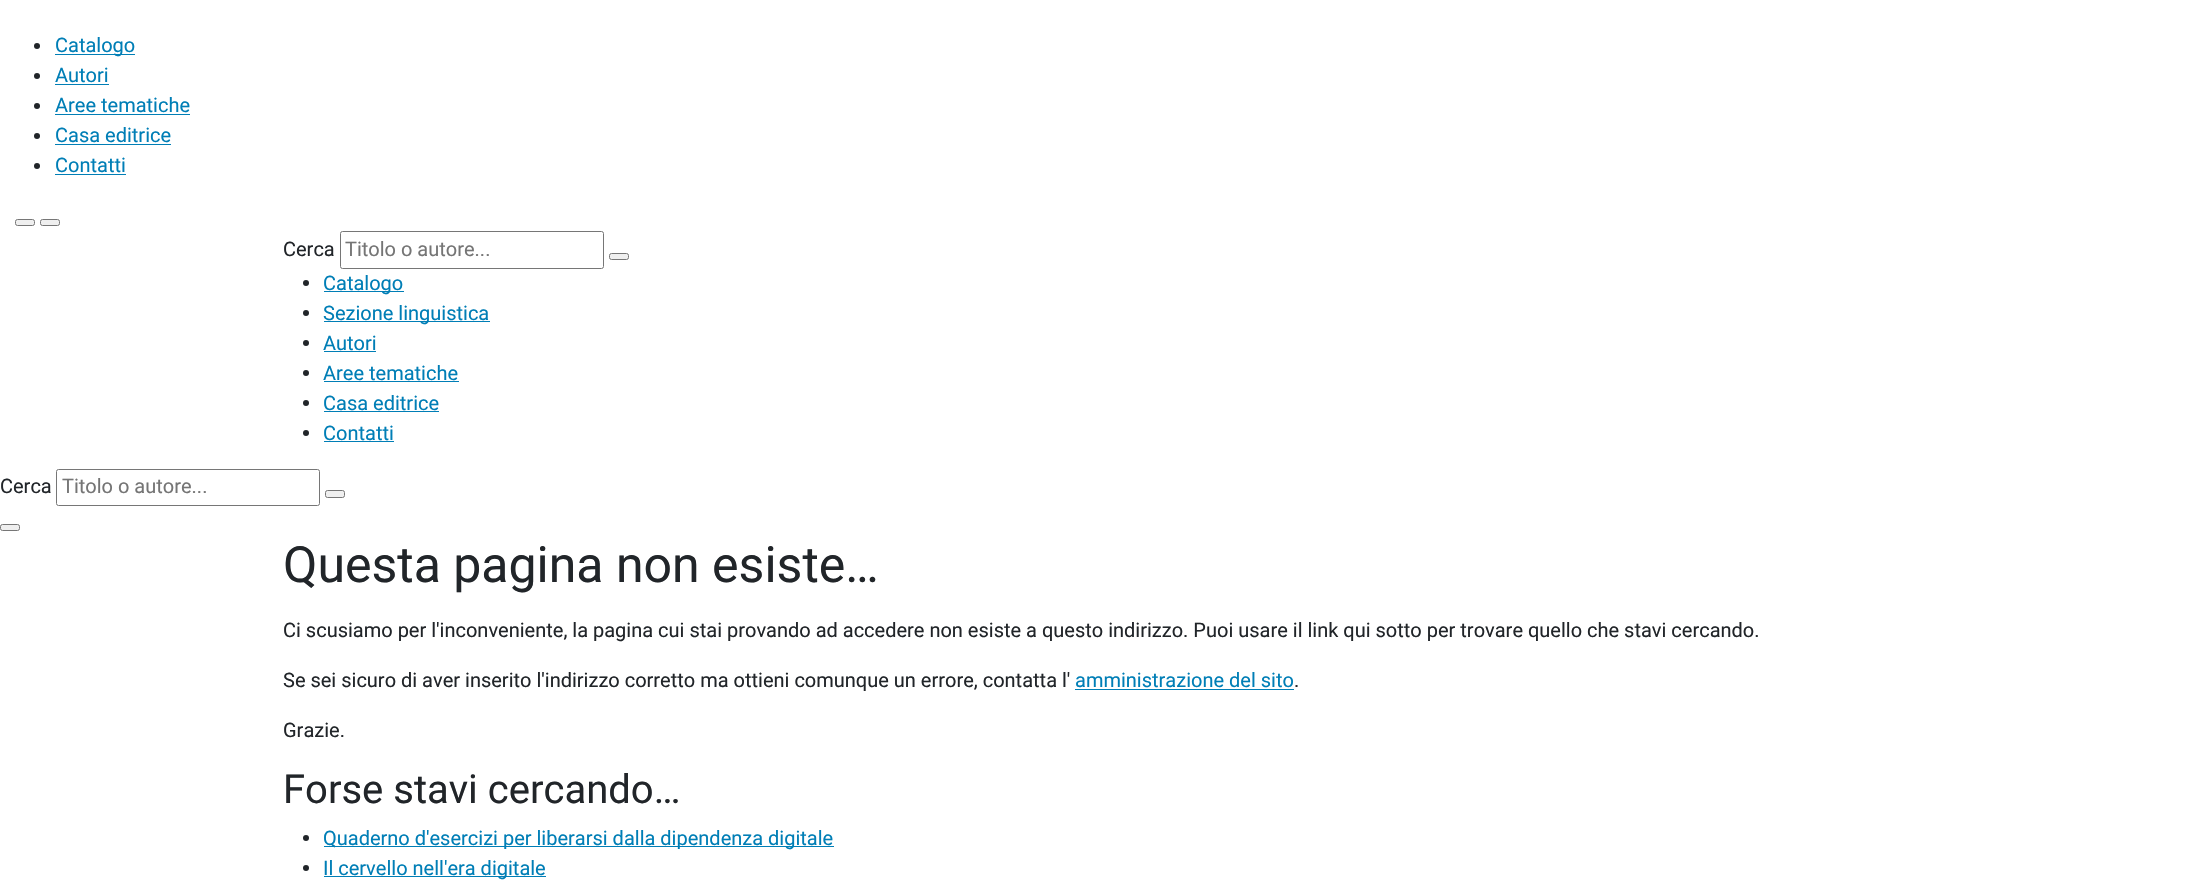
void draw(SkCanvas* c) {
SkPaint p;
p.setAntiAlias(true);
auto F=[&](const char* family, int weight, float size, bool italic = false){SkFontStyle style(weight, SkFontStyle::kNormal_Width,italic ? SkFontStyle::kItalic_Slant : SkFontStyle::kUpright_Slant);SkFont result(fontMgr->matchFamilyStyle(family, style), size);result.setSubpixel(true);return result;};
auto T=[&](const char* s, float x, float y, const SkFont& font){c->drawString(s, x, y, font, p);};
auto R=[&](float x, float y, float w, float h){c->drawRect(SkRect::MakeXYWH(x, y, w, h), p);};
c->clear(0xffffffff);
p.setColor(0xff212529);
c->drawCircle(37,46,3,p);
p.setColor(0xff007eb6);
R(55,54,80,1);
auto f1 = F("Roboto",400,20);
T("Catalogo",55,52,f1);
p.setColor(0xff212529);
c->drawCircle(37,76,3,p);
p.setColor(0xff007eb6);
T("Autori",55,82,f1);
R(55,84,54,1);
p.setColor(0xff212529);
c->drawCircle(37,106,3,p);
p.setColor(0xff007eb6);
T("Aree tematiche",55,112,f1);
R(55,114,135,1);
p.setColor(0xff212529);
c->drawCircle(37,136,3,p);
p.setColor(0xff007eb6);
T("Casa editrice",55,142,f1);
R(55,144,116,1);
p.setColor(0xff212529);
c->drawCircle(37,166,3,p);
p.setColor(0xff007eb6);
T("Contatti",55,172,f1);
R(55,174,71,1);
p.setColor(0xffefefef);
c->drawRoundRect(SkRect::MakeXYWH(15.5,219.5,19,6),2,2,p);
p.setStroke(true);
p.setStrokeWidth(1);
p.setColor(0xff767676);
c->drawRoundRect(SkRect::MakeXYWH(15.5,219.5,19,6),2,2,p);
p.setStroke(false);
p.setColor(0xffefefef);
c->drawRoundRect(SkRect::MakeXYWH(40.5,219.5,19,6),2,2,p);
p.setStroke(true);
p.setColor(0xff767676);
c->drawRoundRect(SkRect::MakeXYWH(40.5,219.5,19,6),2,2,p);
p.setStroke(false);
p.setColor(0xff212529);
T("Cerca",283,256,f1);
p.setStroke(true);
p.setColor(0xff767676);
c->drawRoundRect(SkRect::MakeXYWH(340.5,231.5,263,37),2,2,p);
p.setStroke(false);
p.setColor(0xff757575);
T("Titolo o autore...",345,256,f1);
p.setColor(0xffefefef);
c->drawRoundRect(SkRect::MakeXYWH(609.5,253.5,19,6),2,2,p);
p.setStroke(true);
p.setColor(0xff767676);
c->drawRoundRect(SkRect::MakeXYWH(609.5,253.5,19,6),2,2,p);
p.setStroke(false);
p.setColor(0xff212529);
c->drawCircle(306,283,3,p);
p.setColor(0xff007eb6);
R(324,291,80,1);
T("Catalogo",323,290,f1);
p.setColor(0xff212529);
c->drawCircle(306,313,3,p);
p.setColor(0xff007eb6);
R(324,321,166,1);
T("Sezione linguistica",323,320,f1);
p.setColor(0xff212529);
c->drawCircle(306,343,3,p);
p.setColor(0xff007eb6);
T("Autori",323,350,f1);
R(324,351,52,1);
p.setColor(0xff212529);
c->drawCircle(306,373,3,p);
p.setColor(0xff007eb6);
T("Aree tematiche",323,380,f1);
R(324,381,135,1);
p.setColor(0xff212529);
c->drawCircle(306,403,3,p);
p.setColor(0xff007eb6);
T("Casa editrice",323,410,f1);
R(324,411,115,1);
p.setColor(0xff212529);
c->drawCircle(306,433,3,p);
p.setColor(0xff007eb6);
T("Contatti",323,440,f1);
R(324,441,70,1);
p.setColor(0xff212529);
T("Cerca",0,493,f1);
p.setStroke(true);
p.setColor(0xff767676);
c->drawRoundRect(SkRect::MakeXYWH(56.5,469.5,263,36),2,2,p);
p.setStroke(false);
p.setColor(0xff757575);
T("Titolo o autore...",62,493,f1);
p.setColor(0xffefefef);
c->drawRoundRect(SkRect::MakeXYWH(325.5,490.5,19,7),2,2,p);
p.setStroke(true);
p.setColor(0xff767676);
c->drawRoundRect(SkRect::MakeXYWH(325.5,490.5,19,7),2,2,p);
p.setStroke(false);
p.setColor(0xffefefef);
c->drawRoundRect(SkRect::MakeXYWH(.5,524.5,19,6),2,2,p);
p.setStroke(true);
p.setColor(0xff767676);
c->drawRoundRect(SkRect::MakeXYWH(.5,524.5,19,6),2,2,p);
auto f2 = F("Roboto",400,50);
p.setStroke(false);
p.setColor(0xff212529);
T("Questa pagina non esiste…",283,582,f2);
T("Ci scusiamo per l'inconveniente, la pagina cui stai provando ad accedere non esiste a questo indirizzo. Puoi usare il link qui sotto per trovare quello che stavi cercando.",283,637,f1);
T("Se sei sicuro di aver inserito l'indirizzo corretto ma ottieni comunque un errore, contatta l'",283,687,f1);
p.setColor(0xff007eb6);
T("amministrazione del sito",1075,687,f1);
R(1075,689,219,1);
p.setColor(0xff212529);
T(".",1294,687,f1);
T("Grazie.",283,737,f1);
auto f3 = F("Roboto",400,40);
T("Forse stavi cercando…",283,803,f3);
c->drawCircle(306,838,3,p);
p.setColor(0xff007eb6);
R(324,846,510,1);
T("Quaderno d'esercizi per liberarsi dalla dipendenza digitale",323,845,f1);
p.setColor(0xff212529);
c->drawCircle(306,868,3,p);
p.setColor(0xff007eb6);
R(324,876,222,1);
T("Il cervello nell'era digitale",323,875,f1);
}
